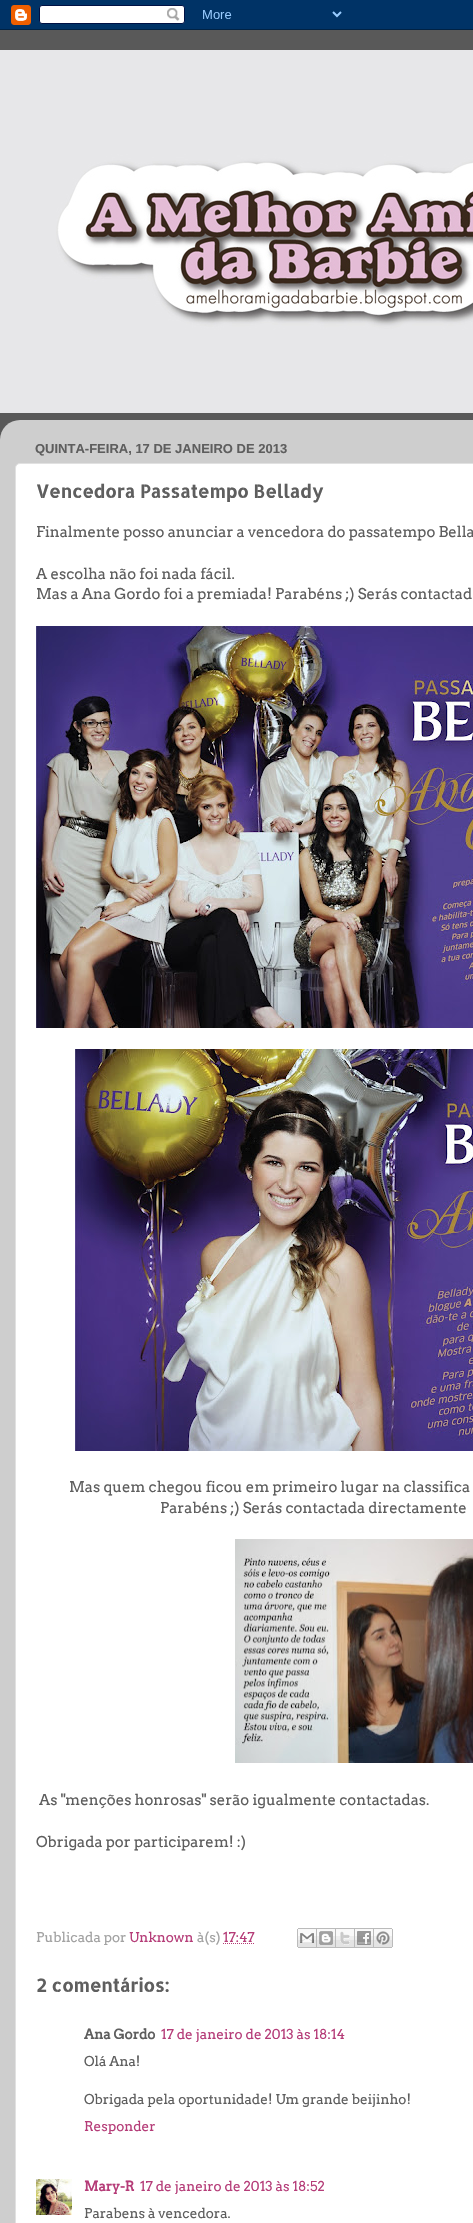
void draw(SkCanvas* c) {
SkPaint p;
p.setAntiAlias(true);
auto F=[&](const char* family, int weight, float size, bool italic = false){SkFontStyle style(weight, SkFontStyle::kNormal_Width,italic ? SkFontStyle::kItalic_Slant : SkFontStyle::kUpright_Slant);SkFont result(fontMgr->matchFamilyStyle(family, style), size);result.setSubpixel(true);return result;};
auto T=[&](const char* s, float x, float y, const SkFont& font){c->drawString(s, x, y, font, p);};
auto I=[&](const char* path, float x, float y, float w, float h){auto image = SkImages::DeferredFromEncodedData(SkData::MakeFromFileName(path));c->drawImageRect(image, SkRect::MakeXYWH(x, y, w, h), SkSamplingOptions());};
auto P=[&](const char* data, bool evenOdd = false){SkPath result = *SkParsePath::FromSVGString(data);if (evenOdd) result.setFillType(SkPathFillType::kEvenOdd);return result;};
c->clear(0xff595959);
I("1.png",0,0,473,30);
I("2.png",0,50,473,363);
I("3.png",0,420,473,1803);
auto f1 = F("Liberation Sans",700,13);
p.setColor(0xff5e5e5e);
T("QUINTA-FEIRA, 17 DE JANEIRO DE 2013",35,453,f1);
p.setColor(0xffffffff);
c->drawRoundRect(SkRect::MakeXYWH(15.5,463.5,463,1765),4.5,4.5,p);
p.setStroke(true);
p.setStrokeWidth(1);
p.setColor(0xffe1e1e1);
c->drawRoundRect(SkRect::MakeXYWH(15.5,463.5,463,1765),4.5,4.5,p);
auto f2 = F("Allerta Stencil",700,18);
p.setStroke(false);
p.setColor(0xff5e5e5e);
T("Vencedora Passatempo Bellady",36,498,f2);
auto f3 = F("Arvo",400,14.85);
T("Finalmente posso anunciar a vencedora do passatempo Bella",36,537,f3);
T("A escolha não foi nada fácil.",36,579,f3);
T("Mas a Ana Gordo foi a premiada! Parabéns ;) Serás contactad",36,599,f3);
I("4.png",36,626,437,402);
I("5.png",75,1049,398,402);
T("Mas quem chegou ficou em primeiro lugar na classifica",69,1492,f3);
T("Parabéns ;) Serás contactada directamente",160,1513,f3);
I("6.png",235,1539,238,224);
T("As \"menções honrosas\" serão igualmente contactadas.",39,1805,f3);
T("Obrigada por participarem! :)",36,1847,f3);
auto f4 = F("Arvo",400,13.5);
p.setColor(0xffa2a2a2);
T("Publicada por",36,1942,f4);
p.setColor(0xffb53c78);
T("Unknown",129,1942,f4);
p.setColor(0xffa2a2a2);
T("à(s)",197,1942,f4);
p.setColor(0xffb53c78);
T("17:47",223,1942,f4);
p.setStroke(true);
p.setPathEffect(SkDashPathEffect::Make({{1,1}}, 0));
c->drawPath(P("M223 1943.5h32"),p);
p.setPathEffect(nullptr);
I("7.png",297,1928,20,20);
I("8.png",317,1928,19,20);
I("9.png",336,1928,19,20);
I("10.png",355,1928,19,20);
I("11.png",374,1928,19,20);
p.setStroke(false);
p.setColor(0xff5e5e5e);
T("2 comentários:",36,1992,f2);
auto f5 = F("Arvo",700,13.5);
T("Ana Gordo",84,2039,f5);
p.setColor(0xffb53c78);
T("17 de janeiro de 2013 às 18:14",161,2039,f4);
p.setColor(0xff5e5e5e);
T("Olá Ana!",84,2066,f4);
T("Obrigada pela oportunidade! Um grande beijinho!",84,2104,f4);
p.setColor(0xffb53c78);
T("Responder",84,2131,f4);
I("12.png",36,2179,36,36);
T("Mary-R",84,2191,f5);
T("17 de janeiro de 2013 às 18:52",140,2191,f4);
p.setColor(0xff5e5e5e);
T("Parabens à vencedora.",84,2218,f4);
}
